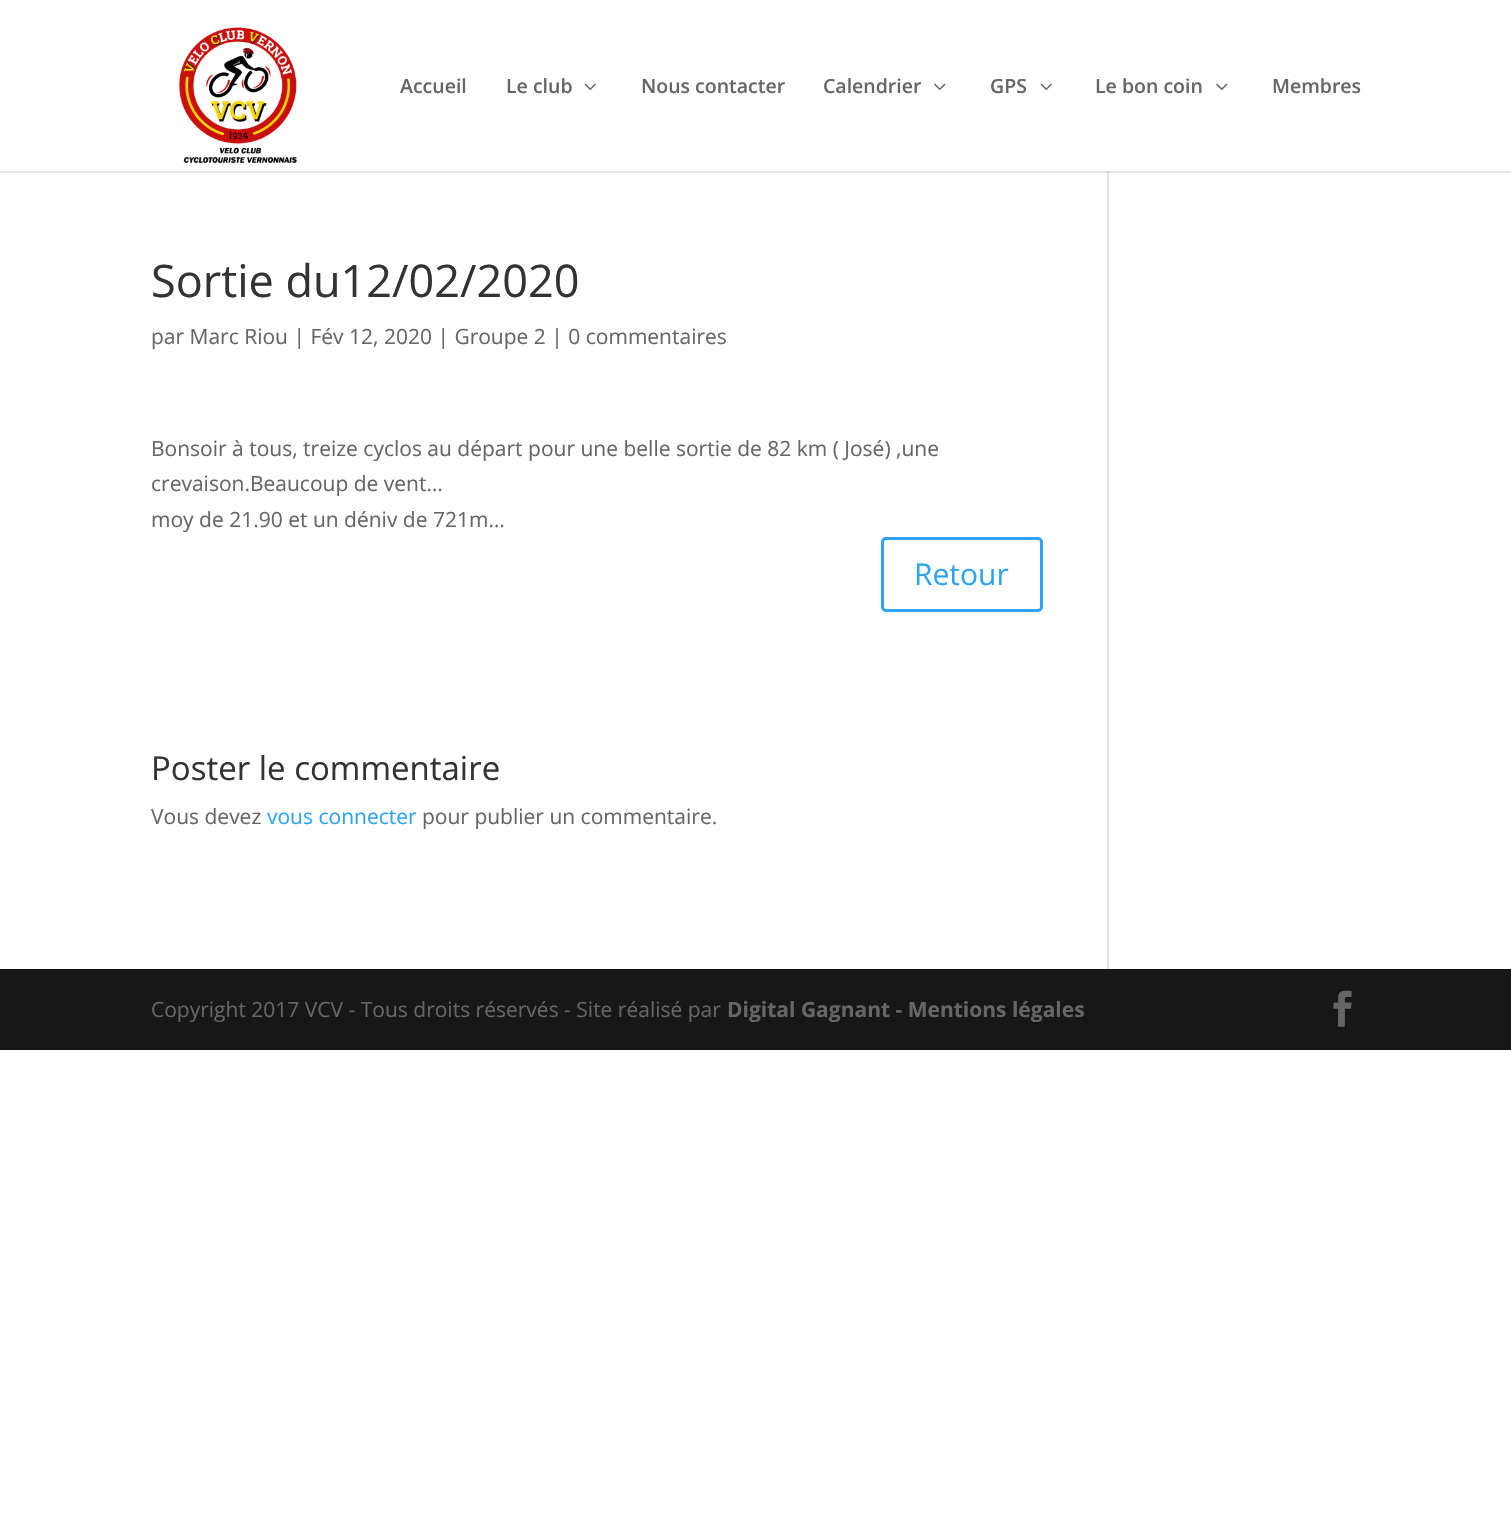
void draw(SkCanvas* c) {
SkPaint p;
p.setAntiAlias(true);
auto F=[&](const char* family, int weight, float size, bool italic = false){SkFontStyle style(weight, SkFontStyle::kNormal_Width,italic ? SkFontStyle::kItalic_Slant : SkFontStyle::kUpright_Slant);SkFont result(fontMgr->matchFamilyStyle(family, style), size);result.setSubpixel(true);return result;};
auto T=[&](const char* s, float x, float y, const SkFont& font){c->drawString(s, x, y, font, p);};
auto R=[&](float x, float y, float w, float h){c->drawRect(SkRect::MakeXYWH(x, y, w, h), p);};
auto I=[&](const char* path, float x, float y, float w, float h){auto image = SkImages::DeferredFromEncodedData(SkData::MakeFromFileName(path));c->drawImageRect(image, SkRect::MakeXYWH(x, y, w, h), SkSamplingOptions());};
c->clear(0xffffffff);
p.setColor(0xffe6e6e6);
R(0,171,1511,2);
I("1.png",179,27,118,137);
auto f1 = F("Open Sans",600,19.5);
p.setColor(0xff666666);
T("Accueil",400,93,f1);
T("Le club",506,93,f1);
I("2.png",584,83,12,7);
T("Nous contacter",641,93,f1);
T("Calendrier",823,93,f1);
I("3.png",934,83,12,7);
T("GPS",990,93,f1);
I("2.png",1040,83,12,7);
T("Le bon coin",1095,93,f1);
I("3.png",1216,83,12,7);
T("Membres",1272,93,f1);
auto f2 = F("Open Sans",400,45);
p.setColor(0xff333333);
T("Sortie du12/02/2020",151,297,f2);
auto f3 = F("Open Sans",400,21);
p.setColor(0xff666666);
T("par Marc Riou | Fév 12, 2020 | Groupe 2 | 0 commentaires",151,344,f3);
T("Bonsoir à tous, treize cyclos au départ pour une belle sortie de 82 km ( José) ,une",151,456,f3);
T("crevaison.Beaucoup de vent…",151,491,f3);
T("moy de 21.90 et un déniv de 721m…",151,527,f3);
p.setStroke(true);
p.setStrokeWidth(3);
p.setColor(0xff2ea3f2);
c->drawRoundRect(SkRect::MakeXYWH(882.5,538.5,159,72),3.5,3.5,p);
auto f4 = F("Open Sans",400,30);
p.setStroke(false);
T("Retour",914,585,f4);
auto f5 = F("Open Sans",400,33);
p.setColor(0xff333333);
T("Poster le commentaire",151,780,f5);
p.setColor(0xff666666);
T("Vous devez",151,824,f3);
p.setColor(0xff2ea3f2);
T("vous connecter",267,824,f3);
p.setColor(0xff666666);
T("pour publier un commentaire.",422,824,f3);
p.setColor(0xffe2e2e2);
R(1107,171,2,798);
p.setColor(0xffcbcbcb);
R(1107,171,2,2);
p.setColor(0xff171717);
R(0,969,1511,81);
p.setColor(0xff666666);
T("Copyright 2017 VCV - Tous droits réservés - Site réalisé par",151,1017,f3);
auto f6 = F("Open Sans",700,21);
T("Digital Gagnant - Mentions légales",727,1017,f6);
I("4.png",1333,990,19,37);
}
